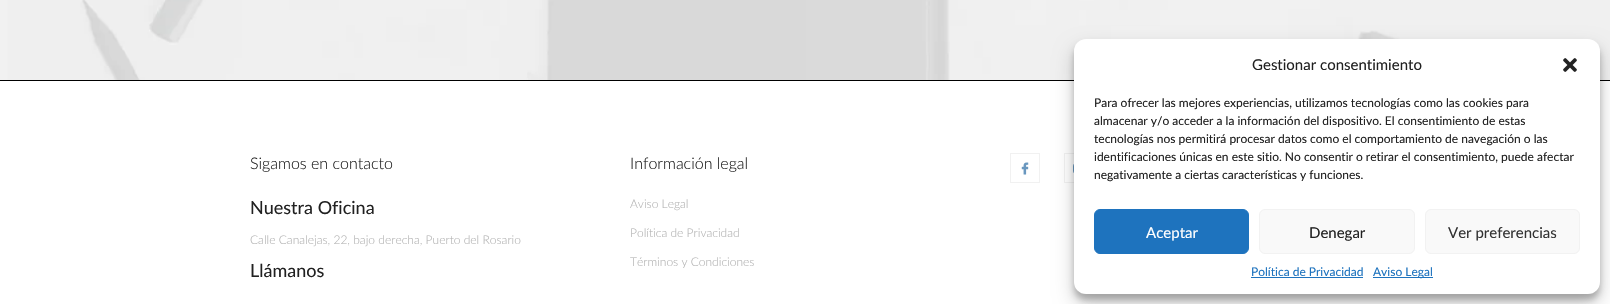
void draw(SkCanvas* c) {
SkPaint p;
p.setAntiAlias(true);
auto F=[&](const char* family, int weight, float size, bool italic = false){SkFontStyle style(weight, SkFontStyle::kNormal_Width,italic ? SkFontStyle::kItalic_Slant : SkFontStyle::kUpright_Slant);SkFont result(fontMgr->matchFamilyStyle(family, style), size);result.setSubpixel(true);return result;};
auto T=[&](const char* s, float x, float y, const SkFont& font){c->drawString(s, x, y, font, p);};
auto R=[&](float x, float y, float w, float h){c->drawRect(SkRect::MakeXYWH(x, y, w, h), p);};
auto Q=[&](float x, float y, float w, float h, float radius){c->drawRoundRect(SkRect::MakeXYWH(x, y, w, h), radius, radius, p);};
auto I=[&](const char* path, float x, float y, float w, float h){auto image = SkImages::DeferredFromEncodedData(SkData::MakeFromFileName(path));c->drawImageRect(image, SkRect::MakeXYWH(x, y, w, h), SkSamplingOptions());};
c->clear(0xffffffff);
I("1.png",0,0,1610,80);
p.setColor(0xff000000);
R(0,80,1610,1);
auto f1 = F("Lato",300,16);
p.setColor(0xff212121);
T("Sigamos en contacto",250,169,f1);
auto f2 = F("Lato",400,18);
T("Nuestra Oficina",250,214,f2);
auto f3 = F("Lato",300,12);
p.setColor(0xffb2b2b2);
T("Calle Canalejas, 22, bajo derecha, Puerto del Rosario",250,244,f3);
p.setColor(0xff212121);
T("Llámanos",250,277,f2);
T("Información legal",630,169,f1);
p.setColor(0xffb2b2b2);
T("Aviso Legal",630,208,f3);
T("Política de Privacidad",630,237,f3);
T("Términos y Condiciones",630,266,f3);
p.setStroke(true);
p.setStrokeWidth(1);
p.setColor(0xfff1f1f1);
c->drawRect(SkRect::MakeXYWH(1010.5,153.5,29,29),p);
I("2.png",1021,162,8,13);
c->drawRect(SkRect::MakeXYWH(1064.5,153.5,29,29),p);
I("3.png",1073,164,1,9);
p.setStroke(false);
p.setColor(0x3b000000);
p.setMaskFilter(SkMaskFilter::MakeBlur(kNormal_SkBlurStyle, 3));
c->drawRoundRect(SkRect::MakeXYWH(1074,45,526,255),12,12,p);
p.setMaskFilter(nullptr);
p.setColor(0x30000000);
p.setMaskFilter(SkMaskFilter::MakeBlur(kNormal_SkBlurStyle, 10));
c->drawRoundRect(SkRect::MakeXYWH(1074,49,526,255),12,12,p);
p.setMaskFilter(nullptr);
p.setColor(0xffffffff);
Q(1074,39,526,255,12);
auto f4 = F("Lato",400,15);
p.setColor(0xff212121);
T("Gestionar consentimiento",1252,70,f4);
I("4.png",1563,58,14,14);
auto f5 = F("Lato",400,12);
T("Para ofrecer las mejores experiencias, utilizamos tecnologías como las cookies para",1094,107,f5);
T("almacenar y/o acceder a la información del dispositivo. El consentimiento de estas",1094,125,f5);
T("tecnologías nos permitirá procesar datos como el comportamiento de navegación o las",1094,143,f5);
T("identificaciones únicas en este sitio. No consentir o retirar el consentimiento, puede afectar",1094,161,f5);
T("negativamente a ciertas características y funciones.",1094,179,f5);
p.setColor(0xff1e73be);
c->drawRoundRect(SkRect::MakeXYWH(1094.5,209.5,154,44),5.5,5.5,p);
p.setStroke(true);
c->drawRoundRect(SkRect::MakeXYWH(1094.5,209.5,154,44),5.5,5.5,p);
p.setStroke(false);
p.setColor(0xffffffff);
T("Aceptar",1146,238,f4);
p.setColor(0xfff9f9f9);
c->drawRoundRect(SkRect::MakeXYWH(1259.5,209.5,155,44),5.5,5.5,p);
p.setStroke(true);
p.setColor(0xfff2f2f2);
c->drawRoundRect(SkRect::MakeXYWH(1259.5,209.5,155,44),5.5,5.5,p);
p.setStroke(false);
p.setColor(0xff212121);
T("Denegar",1309,238,f4);
p.setColor(0xfff9f9f9);
c->drawRoundRect(SkRect::MakeXYWH(1425.5,209.5,154,44),5.5,5.5,p);
p.setStroke(true);
p.setColor(0xfff2f2f2);
c->drawRoundRect(SkRect::MakeXYWH(1425.5,209.5,154,44),5.5,5.5,p);
p.setStroke(false);
p.setColor(0xff333333);
T("Ver preferencias",1448,238,f4);
p.setColor(0xff1e73be);
T("Política de Privacidad",1251,276,f5);
R(1251,277,112,1);
R(1373,277,60,1);
T("Aviso Legal",1373,276,f5);
}
